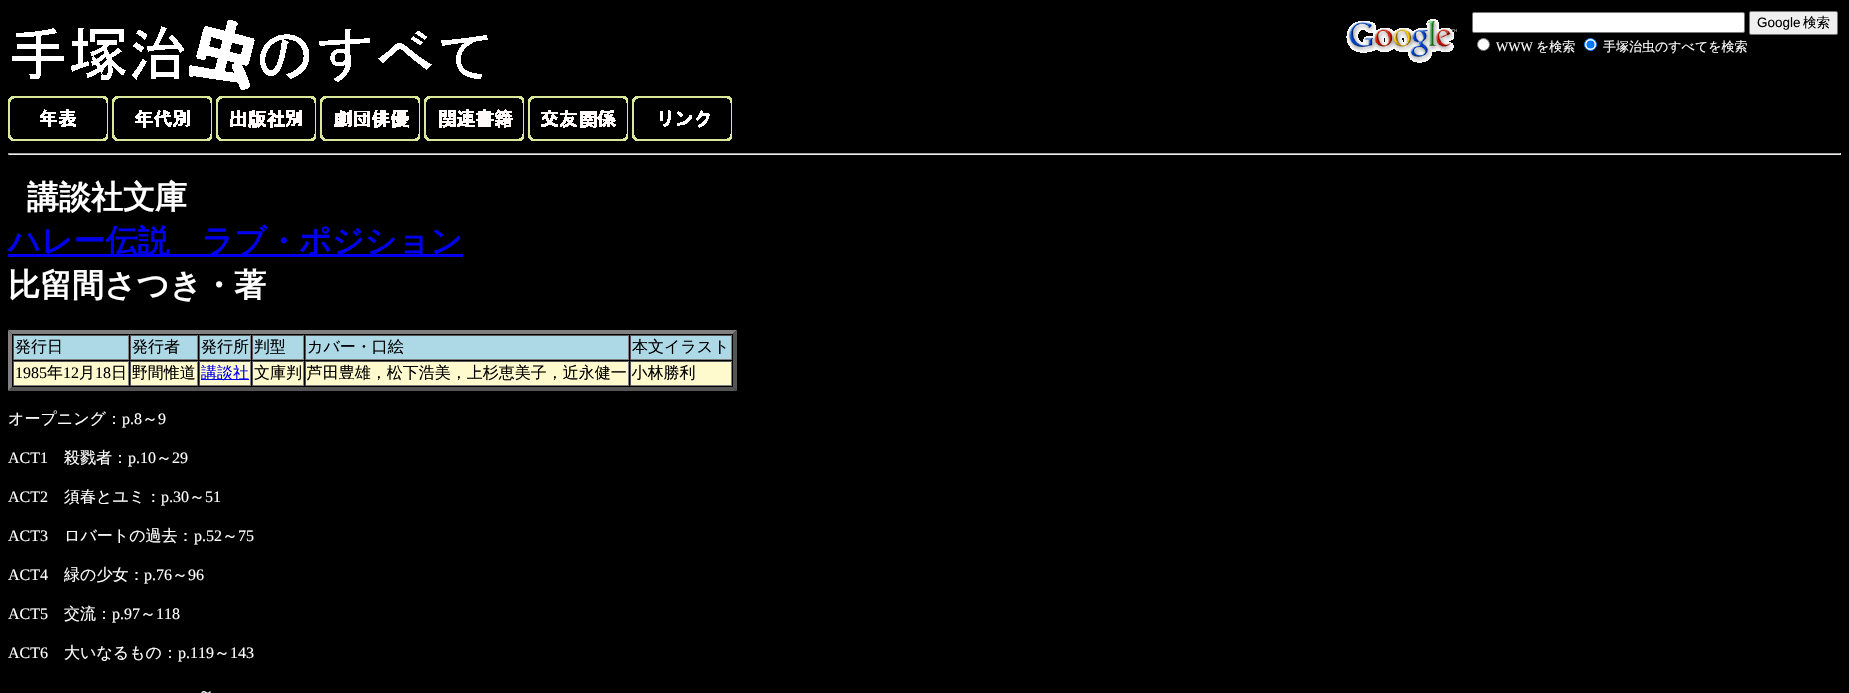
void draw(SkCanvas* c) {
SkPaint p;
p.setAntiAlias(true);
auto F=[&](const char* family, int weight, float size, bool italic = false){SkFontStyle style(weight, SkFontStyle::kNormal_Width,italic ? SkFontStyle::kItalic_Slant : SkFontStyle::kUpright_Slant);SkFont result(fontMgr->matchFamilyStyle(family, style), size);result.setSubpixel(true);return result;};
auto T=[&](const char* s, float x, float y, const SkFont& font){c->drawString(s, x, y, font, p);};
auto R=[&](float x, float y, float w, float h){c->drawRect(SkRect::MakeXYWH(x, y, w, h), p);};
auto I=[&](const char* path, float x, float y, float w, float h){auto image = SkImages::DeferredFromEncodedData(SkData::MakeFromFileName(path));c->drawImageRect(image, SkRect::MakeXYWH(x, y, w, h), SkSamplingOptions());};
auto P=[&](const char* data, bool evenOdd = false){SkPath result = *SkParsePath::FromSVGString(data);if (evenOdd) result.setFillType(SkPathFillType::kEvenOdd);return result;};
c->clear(0xff000000);
I("1.png",12,20,476,70);
I("2.png",1346,19,111,44);
p.setColor(0xffffffff);
c->drawRoundRect(SkRect::MakeXYWH(1472.5,12.5,272,20),1.5,1.5,p);
p.setStroke(true);
p.setStrokeWidth(1);
p.setColor(0xff767676);
c->drawRoundRect(SkRect::MakeXYWH(1472.5,12.5,272,20),1.5,1.5,p);
p.setStroke(false);
p.setColor(0xffefefef);
c->drawRoundRect(SkRect::MakeXYWH(1749.5,11.5,88,23),1.5,1.5,p);
p.setStroke(true);
p.setColor(0xff767676);
c->drawRoundRect(SkRect::MakeXYWH(1749.5,11.5,88,23),1.5,1.5,p);
auto f1 = F("Liberation Sans",400,13.5);
p.setStroke(false);
p.setColor(0xff000000);
T("Google",1757,27,f1);
auto f2 = F("WenQuanYi Zen Hei",500,13.5);
T("検索",1803,27,f2);
p.setColor(0xffffffff);
c->drawCircle(1483.5,44.5,6,p);
p.setStroke(true);
p.setColor(0xff767676);
c->drawCircle(1483.5,44.5,6,p);
auto f3 = F("Liberation Serif",400,13);
p.setStroke(false);
p.setColor(0xffffffff);
T("WWW",1496,51,f3);
auto f4 = F("WenQuanYi Zen Hei",500,13);
T("を検索",1536,51,f4);
c->drawCircle(1590.5,44.5,6,p);
p.setStroke(true);
p.setColor(0xff0075ff);
c->drawCircle(1590.5,44.5,6,p);
p.setStroke(false);
c->drawCircle(1590.5,44.5,4,p);
p.setColor(0xffffffff);
T("手塚治虫のすべてを検索",1603,51,f4);
I("3.png",8,96,100,45);
I("4.png",112,96,100,45);
I("5.png",216,96,100,45);
I("6.png",320,96,100,45);
I("7.png",424,96,100,45);
I("8.png",528,96,100,45);
I("9.png",632,96,100,45);
p.setColor(0xff9f9f9f);
R(8,153,1833,1);
p.setColor(0xffeeeeee);
R(1840,153,1,2);
R(8,154,1833,1);
p.setColor(0xff9f9f9f);
R(8,153,1,2);
auto f5 = F("WenQuanYi Zen Hei",700,32);
p.setColor(0xffffffff);
T("講談社文庫",27,208,f5);
p.setColor(0xff0000ee);
R(8,254,455,3);
T("ハレー伝説　ラブ・ポジション",8,252,f5);
p.setColor(0xffffffff);
T("比留間さつき・著",8,296,f5);
p.setColor(0xff808080);
c->drawPath(P("M8 330h729l-4 4h-721z"),p);
p.setColor(0xff555555);
c->drawPath(P("M737 330v61l-4-4v-53z"),p);
c->drawPath(P("M737 391h-729l4-4h721z"),p);
p.setColor(0xff808080);
c->drawPath(P("M8 391v-61l4 4v53z"),p);
p.setColor(0xffadd8e6);
R(131,336,66,23);
p.setColor(0xff555555);
R(130,335,68,1);
p.setColor(0xff808080);
R(197,335,1,25);
R(130,359,68,1);
p.setColor(0xff555555);
R(130,335,1,25);
auto f6 = F("WenQuanYi Zen Hei",500,16);
p.setColor(0xff000000);
T("発行者",132,352,f6);
p.setColor(0xffadd8e6);
R(253,336,50,23);
p.setColor(0xff555555);
R(252,335,52,1);
p.setColor(0xff808080);
R(303,335,1,25);
R(252,359,52,1);
p.setColor(0xff555555);
R(252,335,1,25);
p.setColor(0xffadd8e6);
R(14,336,114,23);
p.setColor(0xff555555);
R(13,335,116,1);
p.setColor(0xff808080);
R(128,335,1,25);
R(13,359,116,1);
p.setColor(0xff555555);
R(13,335,1,25);
p.setColor(0xff000000);
T("発行日",15,352,f6);
p.setColor(0xffadd8e6);
R(200,336,50,23);
p.setColor(0xff555555);
R(199,335,52,1);
p.setColor(0xff808080);
R(250,335,1,25);
R(199,359,52,1);
p.setColor(0xff555555);
R(199,335,1,25);
p.setColor(0xff000000);
T("発行所 判型",201,352,f6);
p.setColor(0xffadd8e6);
R(306,336,322,23);
p.setColor(0xff555555);
R(305,335,324,1);
p.setColor(0xff808080);
R(628,335,1,25);
R(305,359,324,1);
p.setColor(0xff555555);
R(305,335,1,25);
p.setColor(0xff000000);
T("カバー・口絵",307,352,f6);
p.setColor(0xffadd8e6);
R(631,336,100,23);
p.setColor(0xff555555);
R(630,335,102,1);
p.setColor(0xff808080);
R(731,335,1,25);
R(630,359,102,1);
p.setColor(0xff555555);
R(630,335,1,25);
p.setColor(0xff000000);
T("本文イラスト",632,352,f6);
p.setColor(0xfffffacd);
R(131,362,66,23);
p.setColor(0xff555555);
R(130,361,68,1);
p.setColor(0xff808080);
R(197,361,1,25);
R(130,385,68,1);
p.setColor(0xff555555);
R(130,361,1,25);
p.setColor(0xfffffacd);
R(306,362,322,23);
p.setColor(0xff555555);
R(305,361,324,1);
p.setColor(0xff808080);
R(628,361,1,25);
R(305,385,324,1);
p.setColor(0xff555555);
R(305,361,1,25);
p.setColor(0xfffffacd);
R(631,362,100,23);
p.setColor(0xff555555);
R(630,361,102,1);
p.setColor(0xff808080);
R(731,361,1,25);
R(630,385,102,1);
p.setColor(0xff555555);
R(630,361,1,25);
p.setColor(0xfffffacd);
R(14,362,114,23);
p.setColor(0xff555555);
R(13,361,116,1);
p.setColor(0xff808080);
R(128,361,1,25);
R(13,385,116,1);
p.setColor(0xff555555);
R(13,361,1,25);
auto f7 = F("Liberation Serif",400,16);
p.setColor(0xff000000);
T("1985",15,378,f7);
T("年",47,378,f6);
T("12",63,378,f7);
T("月",79,378,f6);
T("18",95,378,f7);
T("日 野間惟道",111,378,f6);
p.setColor(0xfffffacd);
R(200,362,50,23);
p.setColor(0xff555555);
R(199,361,52,1);
p.setColor(0xff808080);
R(250,361,1,25);
R(199,385,52,1);
p.setColor(0xff555555);
R(199,361,1,25);
p.setColor(0xff0000ee);
R(201,379,48,1);
T("講談社",201,378,f6);
p.setColor(0xfffffacd);
R(253,362,50,23);
p.setColor(0xff555555);
R(252,361,52,1);
p.setColor(0xff808080);
R(303,361,1,25);
R(252,385,52,1);
p.setColor(0xff555555);
R(252,361,1,25);
p.setColor(0xff000000);
T("文庫判 芦田豊雄，松下浩美，上杉恵美子，近永健一 小林勝利",254,378,f6);
p.setColor(0xffffffff);
T("オープニング：",8,424,f6);
T("p.8",122,424,f7);
T("～",142,424,f6);
T("9",158,424,f7);
T("ACT1",8,463,f7);
T("殺戮者：",64,463,f6);
T("p.10",128,463,f7);
T("～",156,463,f6);
T("29",172,463,f7);
T("ACT2",8,502,f7);
T("須春とユミ：",64,502,f6);
T("p.30",161,502,f7);
T("～",189,502,f6);
T("51",205,502,f7);
T("ACT3",8,541,f7);
T("ロバートの過去：",64,541,f6);
T("p.52",194,541,f7);
T("～",222,541,f6);
T("75",238,541,f7);
T("ACT4",8,580,f7);
T("緑の少女：",64,580,f6);
T("p.76",144,580,f7);
T("～",172,580,f6);
T("96",188,580,f7);
T("ACT5",8,619,f7);
T("交流：",64,619,f6);
T("p.97",112,619,f7);
T("～",140,619,f6);
T("118",156,619,f7);
T("ACT6",8,658,f7);
T("大いなるもの：",64,658,f6);
T("p.119",178,658,f7);
T("～",214,658,f6);
T("143",230,658,f7);
T("～",198,697,f6);
}
